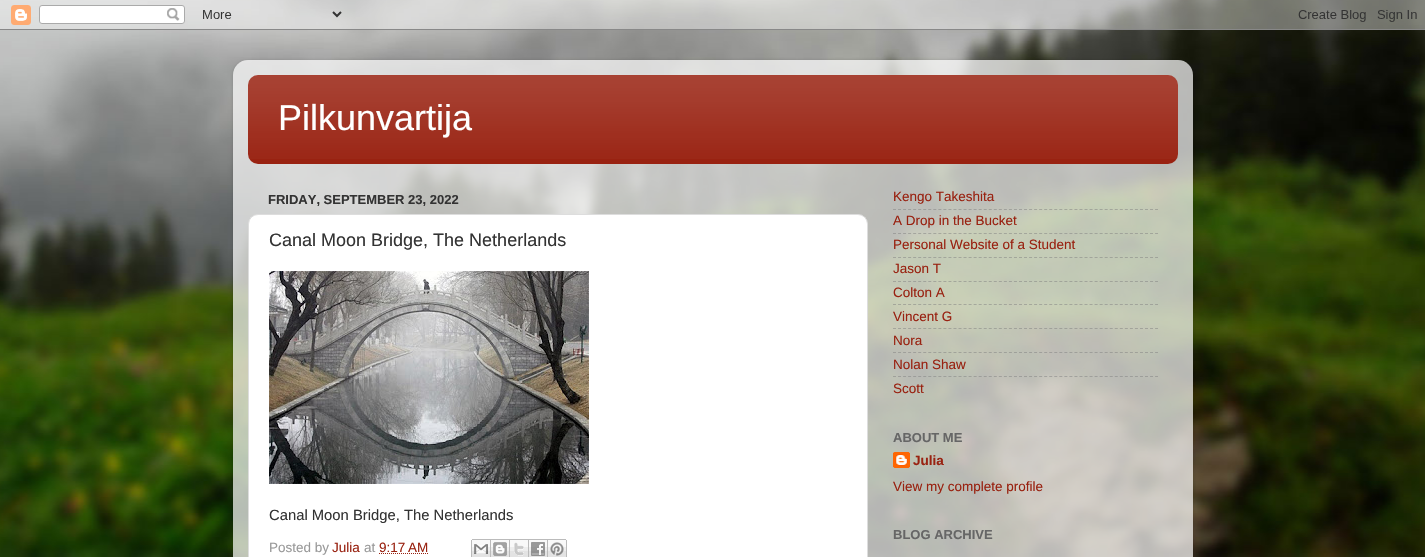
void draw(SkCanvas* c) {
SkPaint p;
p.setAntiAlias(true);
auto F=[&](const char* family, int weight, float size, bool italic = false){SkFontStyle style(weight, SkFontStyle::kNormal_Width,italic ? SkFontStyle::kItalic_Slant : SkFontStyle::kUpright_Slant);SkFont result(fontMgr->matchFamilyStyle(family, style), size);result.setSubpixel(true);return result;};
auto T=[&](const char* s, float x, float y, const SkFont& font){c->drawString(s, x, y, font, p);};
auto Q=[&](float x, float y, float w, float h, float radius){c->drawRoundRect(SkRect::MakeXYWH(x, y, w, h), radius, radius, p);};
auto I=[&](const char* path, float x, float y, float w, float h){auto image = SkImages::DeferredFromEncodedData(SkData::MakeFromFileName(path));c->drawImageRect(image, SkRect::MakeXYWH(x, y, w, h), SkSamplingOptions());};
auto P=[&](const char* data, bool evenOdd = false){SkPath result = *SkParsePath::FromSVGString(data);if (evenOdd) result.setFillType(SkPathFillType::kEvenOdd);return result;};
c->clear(0xffffffff);
I("1.png",0,0,1425,557);
I("2.png",0,0,1425,30);
c->save();
c->clipPath(P("M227 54h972v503h-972zm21 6h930c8.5 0 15 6.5 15 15v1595c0 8.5-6.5 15-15 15h-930c-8.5 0-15-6.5-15-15v-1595c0-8.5 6.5-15 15-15z",true),true);
p.setColor(0x26000000);
p.setMaskFilter(SkMaskFilter::MakeBlur(kNormal_SkBlurStyle, 1.5));
c->drawRoundRect(SkRect::MakeXYWH(233,60,960,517),15,15,p);
p.setMaskFilter(nullptr);
c->restore();
I("3.png",233,60,960,497);
p.setColor(0xff992211);
Q(248,75,930,89,10);
I("4.png",248,75,930,84);
auto f1 = F("Liberation Sans",400,36);
p.setColor(0xffffffff);
T("Pilkunvartija",278,130,f1);
auto f2 = F("Liberation Sans",700,13);
p.setColor(0xff333333);
T("FRIDAY, SEPTEMBER 23, 2022",268,204,f2);
p.setColor(0xffffffff);
c->drawRoundRect(SkRect::MakeXYWH(248.5,214.5,619,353),9.5,9.5,p);
p.setStroke(true);
p.setStrokeWidth(1);
p.setColor(0xffdddddd);
c->drawRoundRect(SkRect::MakeXYWH(248.5,214.5,619,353),9.5,9.5,p);
auto f3 = F("Liberation Sans",400,18);
p.setStroke(false);
p.setColor(0xff333333);
T("Canal Moon Bridge, The Netherlands",269,246,f3);
I("5.png",269,271,320,213);
auto f4 = F("Liberation Sans",400,14.8);
T("Canal Moon Bridge, The Netherlands",269,520,f4);
auto f5 = F("Liberation Sans",400,13.5);
p.setColor(0xff999999);
T("Posted by",269,552,f5);
p.setColor(0xff992211);
T("Julia",332,552,f5);
p.setColor(0xff999999);
T("at",364,552,f5);
p.setColor(0xff992211);
T("9:17 AM",379,552,f5);
p.setStroke(true);
p.setPathEffect(SkDashPathEffect::Make({{1,1}}, 0));
c->drawPath(P("M379 553.5h49"),p);
p.setPathEffect(nullptr);
I("6.png",471,539,20,18);
I("7.png",491,539,19,18);
I("8.png",510,539,19,18);
I("9.png",529,539,19,18);
I("10.png",548,539,19,18);
p.setStroke(false);
T("Kengo Takeshita",893,201,f5);
p.setStroke(true);
p.setColor(0x80808080);
p.setPathEffect(SkDashPathEffect::Make({{3,2.04f}}, 0));
c->drawPath(P("M893 209.5h265"),p);
p.setPathEffect(nullptr);
p.setStroke(false);
p.setColor(0xff992211);
T("A Drop in the Bucket",893,225,f5);
p.setStroke(true);
p.setColor(0x80808080);
p.setPathEffect(SkDashPathEffect::Make({{3,2.04f}}, 0));
c->drawPath(P("M893 233.5h265"),p);
p.setPathEffect(nullptr);
p.setStroke(false);
p.setColor(0xff992211);
T("Personal Website of a Student",893,249,f5);
p.setStroke(true);
p.setColor(0x80808080);
p.setPathEffect(SkDashPathEffect::Make({{3,2.04f}}, 0));
c->drawPath(P("M893 257.5h265"),p);
p.setPathEffect(nullptr);
p.setStroke(false);
p.setColor(0xff992211);
T("Jason T",893,273,f5);
p.setStroke(true);
p.setColor(0x80808080);
p.setPathEffect(SkDashPathEffect::Make({{3,2.04f}}, 0));
c->drawPath(P("M893 281.5h265"),p);
p.setPathEffect(nullptr);
p.setStroke(false);
p.setColor(0xff992211);
T("Colton A",893,297,f5);
p.setStroke(true);
p.setColor(0x80808080);
p.setPathEffect(SkDashPathEffect::Make({{3,2.04f}}, 0));
c->drawPath(P("M893 304.5h265"),p);
p.setPathEffect(nullptr);
p.setStroke(false);
p.setColor(0xff992211);
T("Vincent G",893,321,f5);
p.setStroke(true);
p.setColor(0x80808080);
p.setPathEffect(SkDashPathEffect::Make({{3,2.04f}}, 0));
c->drawPath(P("M893 328.5h265"),p);
p.setPathEffect(nullptr);
p.setStroke(false);
p.setColor(0xff992211);
T("Nora",893,345,f5);
p.setStroke(true);
p.setColor(0x80808080);
p.setPathEffect(SkDashPathEffect::Make({{3,2.04f}}, 0));
c->drawPath(P("M893 352.5h265"),p);
p.setPathEffect(nullptr);
p.setStroke(false);
p.setColor(0xff992211);
T("Nolan Shaw",893,369,f5);
p.setStroke(true);
p.setColor(0x80808080);
p.setPathEffect(SkDashPathEffect::Make({{3,2.04f}}, 0));
c->drawPath(P("M893 376.5h265"),p);
p.setPathEffect(nullptr);
p.setStroke(false);
p.setColor(0xff992211);
T("Scott",893,393,f5);
p.setColor(0xff666666);
T("ABOUT ME",893,442,f2);
I("11.png",893,452,17,16);
auto f6 = F("Liberation Sans",700,13.5);
p.setColor(0xff992211);
T("Julia",913,465,f6);
T("View my complete profile",893,491,f5);
p.setColor(0xff666666);
T("BLOG ARCHIVE",893,539,f2);
}
